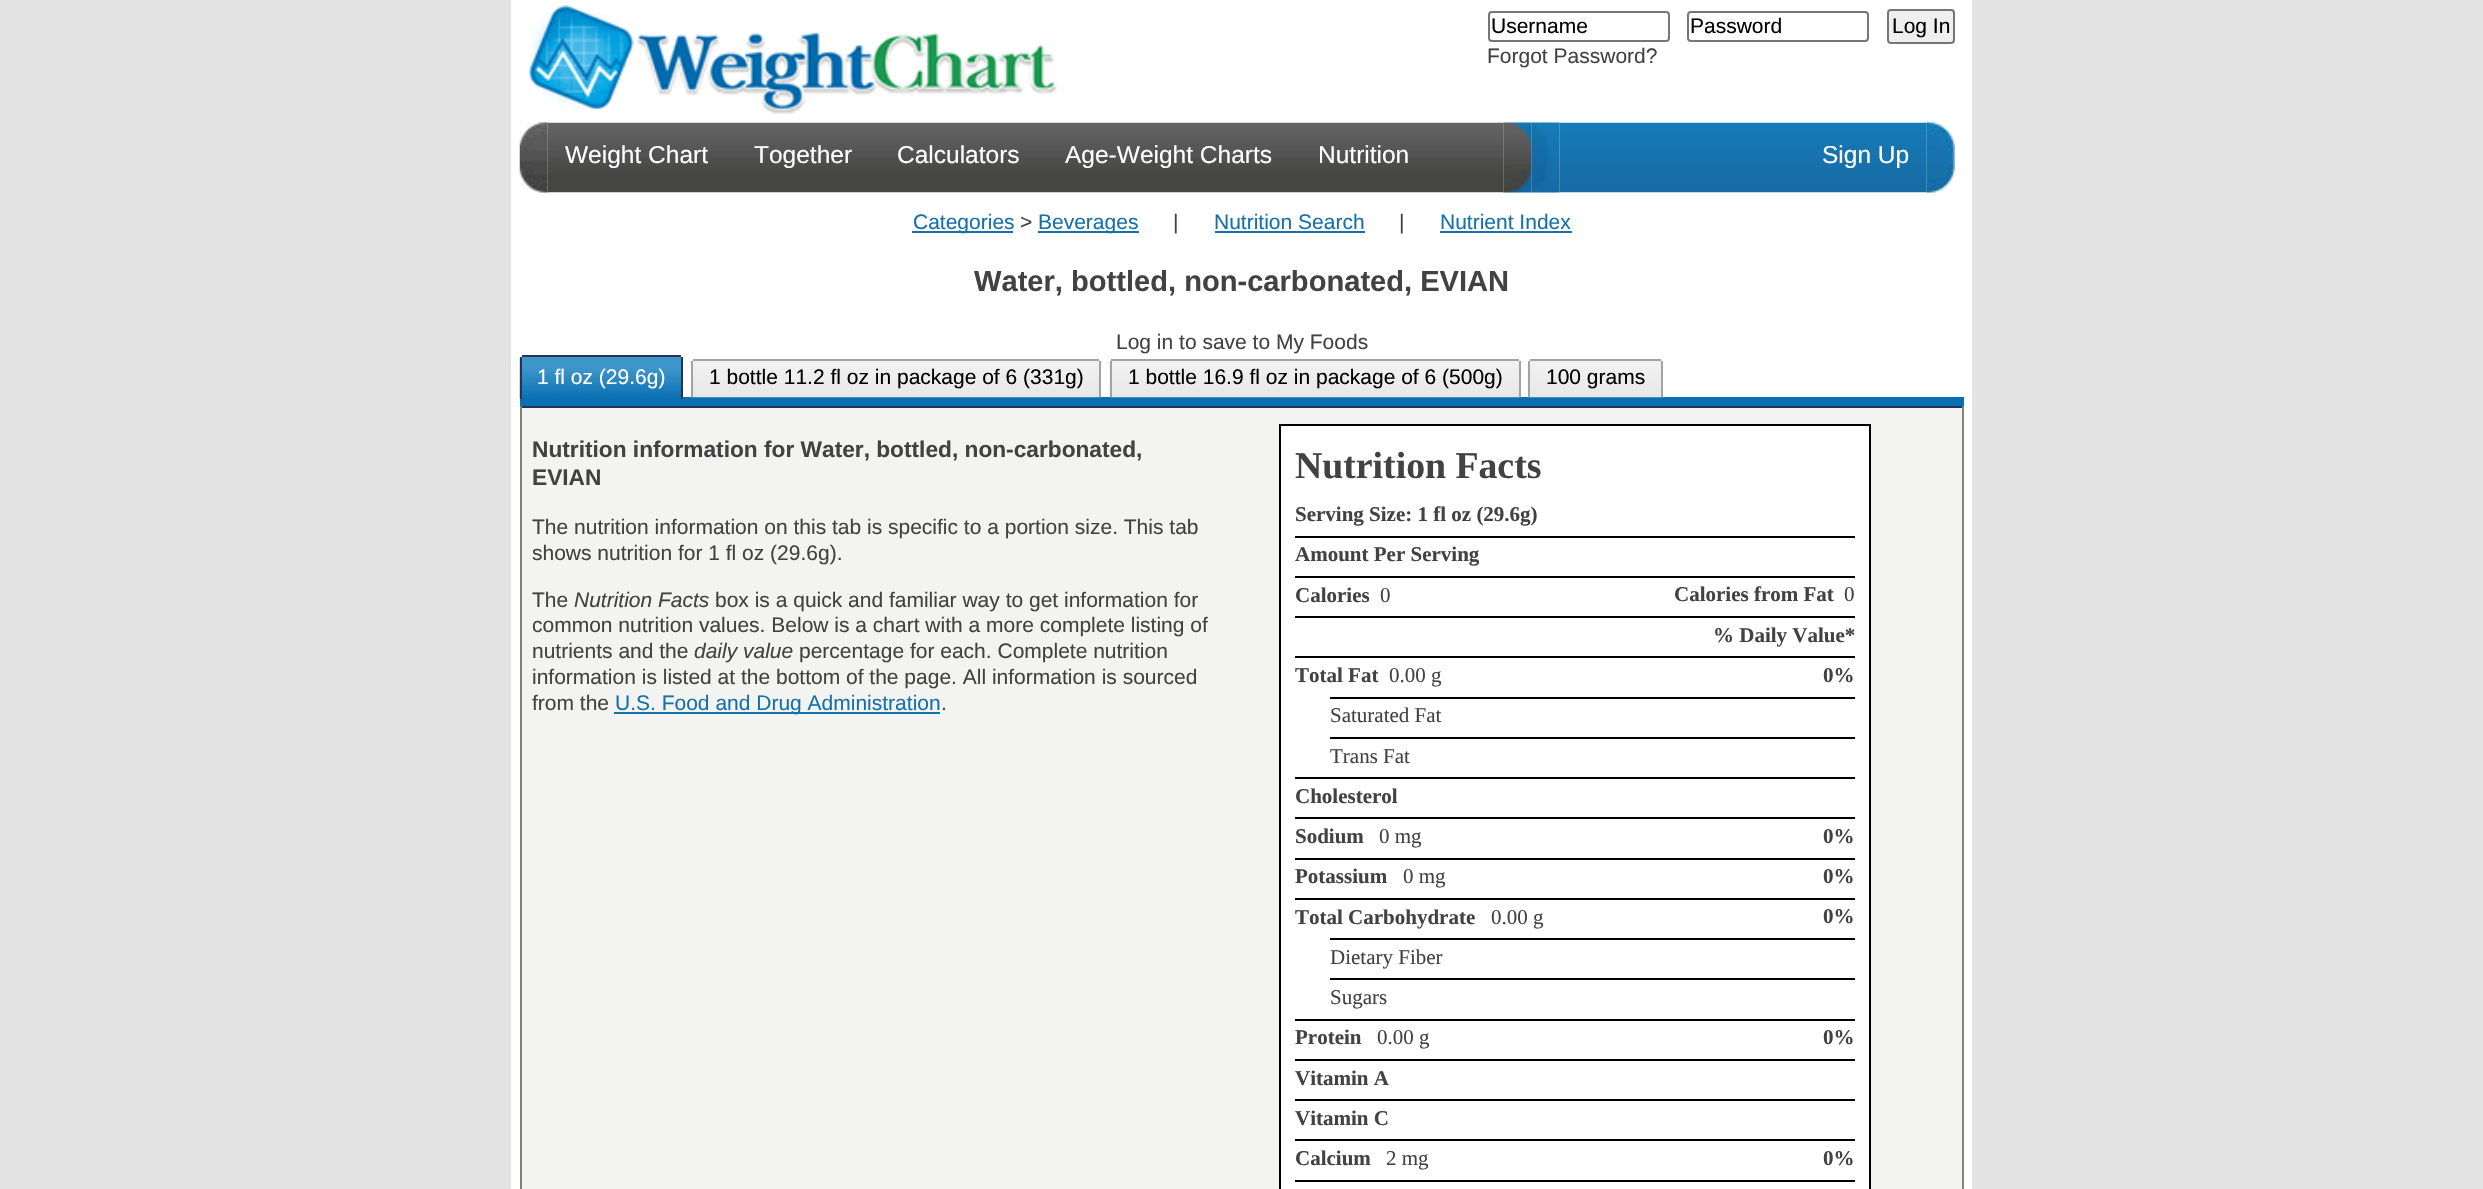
void draw(SkCanvas* c) {
SkPaint p;
p.setAntiAlias(true);
auto F=[&](const char* family, int weight, float size, bool italic = false){SkFontStyle style(weight, SkFontStyle::kNormal_Width,italic ? SkFontStyle::kItalic_Slant : SkFontStyle::kUpright_Slant);SkFont result(fontMgr->matchFamilyStyle(family, style), size);result.setSubpixel(true);return result;};
auto T=[&](const char* s, float x, float y, const SkFont& font){c->drawString(s, x, y, font, p);};
auto R=[&](float x, float y, float w, float h){c->drawRect(SkRect::MakeXYWH(x, y, w, h), p);};
auto I=[&](const char* path, float x, float y, float w, float h){auto image = SkImages::DeferredFromEncodedData(SkData::MakeFromFileName(path));c->drawImageRect(image, SkRect::MakeXYWH(x, y, w, h), SkSamplingOptions());};
c->clear(0xffe3e3e3);
p.setColor(0xffffffff);
R(511,0,1461,1189);
I("1.png",528,5,529,109);
p.setStroke(true);
p.setStrokeWidth(2);
p.setColor(0xff767676);
c->drawRoundRect(SkRect::MakeXYWH(1489,12,180,29),3,3,p);
auto f1 = F("Liberation Sans",400,21);
p.setStroke(false);
p.setColor(0xff000000);
T("Username",1491,33,f1);
p.setStroke(true);
p.setColor(0xff767676);
c->drawRoundRect(SkRect::MakeXYWH(1688,12,180,29),3,3,p);
p.setStroke(false);
p.setColor(0xff000000);
T("Password",1690,33,f1);
p.setColor(0xffefefef);
c->drawRoundRect(SkRect::MakeXYWH(1888,10,66,33),3,3,p);
p.setStroke(true);
p.setColor(0xff767676);
c->drawRoundRect(SkRect::MakeXYWH(1888,10,66,33),3,3,p);
p.setStroke(false);
p.setColor(0xff000000);
T("Log In",1892,33,f1);
p.setColor(0xff434242);
T("Forgot Password?",1487,63,f1);
I("2.png",519,122,29,71);
I("3.png",547,122,957,71);
auto f2 = F("Liberation Sans",400,24.5);
p.setColor(0xffffffff);
T("Weight Chart",565,163,f2);
T("Together",754,163,f2);
T("Calculators",897,163,f2);
T("Age-Weight Charts",1065,163,f2);
T("Nutrition",1318,163,f2);
I("4.png",1503,122,29,71);
I("5.png",1531,122,29,71);
I("6.png",1559,122,368,71);
T("Sign Up",1822,163,f2);
I("7.png",1926,122,29,71);
p.setColor(0xff1670aa);
R(912,231,101,2);
T("Categories",913,229,f1);
p.setColor(0xff434242);
T(">",1020,229,f1);
p.setColor(0xff1670aa);
R(1038,231,101,2);
T("Beverages",1038,229,f1);
p.setColor(0xff434242);
T("|",1173,229,f1);
p.setColor(0xff1670aa);
T("Nutrition Search",1214,229,f1);
R(1215,231,150,2);
p.setColor(0xff434242);
T("|",1399,229,f1);
p.setColor(0xff1670aa);
T("Nutrient Index",1440,229,f1);
R(1440,231,132,2);
auto f3 = F("Liberation Sans",700,29.1);
p.setColor(0xff434242);
T("Water, bottled, non-carbonated, EVIAN",974,291,f3);
T("Log in to save to My Foods",1116,349,f1);
p.setColor(0xff086fb1);
R(520,397,1444,9);
I("8.png",519,357,162,42);
p.setColor(0xff243356);
R(681,357,2,42);
R(520,357,2,42);
R(522,355,159,2);
p.setColor(0xffffffff);
T("1 fl oz (29.6g)",537,384,f1);
I("9.png",691,360,410,38);
p.setColor(0xffa3a3a3);
R(1099,361,2,36);
R(691,361,2,36);
R(693,359,406,2);
p.setColor(0xff000000);
T("1 bottle 11.2 fl oz in package of 6 (331g)",709,384,f1);
I("10.png",1109,360,412,38);
p.setColor(0xffa3a3a3);
R(1519,361,2,36);
R(1110,361,2,36);
R(1111,359,408,2);
p.setColor(0xff000000);
T("1 bottle 16.9 fl oz in package of 6 (500g)",1128,384,f1);
I("11.png",1527,360,136,38);
p.setColor(0xffa3a3a3);
R(1661,361,2,36);
R(1528,361,2,36);
R(1530,359,131,2);
p.setColor(0xff000000);
T("100 grams",1546,384,f1);
p.setColor(0xfff3f3f2);
R(522,408,1440,781);
p.setColor(0xff243356);
R(520,406,1444,2);
p.setColor(0xff808080);
R(1962,406,2,783);
R(520,406,2,783);
auto f4 = F("Liberation Sans",700,22.7);
p.setColor(0xff434242);
T("Nutrition information for Water, bottled, non-carbonated,",532,457,f4);
T("EVIAN",532,485,f4);
T("The nutrition information on this tab is specific to a portion size. This tab",532,534,f1);
T("shows nutrition for 1 fl oz (29.6g).",532,560,f1);
T("The",532,607,f1);
auto f5 = F("Liberation Sans",400,21,true);
T("Nutrition Facts",574,607,f5);
T("box is a quick and familiar way to get information for",715,607,f1);
T("common nutrition values. Below is a chart with a more complete listing of",532,632,f1);
T("nutrients and the",532,658,f1);
T("daily value",694,658,f5);
T("percentage for each. Complete nutrition",799,658,f1);
T("information is listed at the bottom of the page. All information is sourced",532,684,f1);
T("from the",532,710,f1);
p.setColor(0xff1670aa);
R(614,712,326,2);
T("U.S. Food and Drug Administration",615,710,f1);
p.setColor(0xff434242);
T(".",941,710,f1);
p.setColor(0xffffffff);
c->drawRect(SkRect::MakeXYWH(1280,425,590,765),p);
p.setStroke(true);
p.setColor(0xff000000);
c->drawRect(SkRect::MakeXYWH(1280,425,590,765),p);
auto f6 = F("Liberation Serif",700,37.75);
p.setStroke(false);
p.setColor(0xff434242);
T("Nutrition Facts",1295,478,f6);
auto f7 = F("Liberation Serif",700,21);
T("Serving Size: 1 fl oz (29.6g)",1295,521,f7);
p.setColor(0xff000000);
R(1295,536,560,2);
p.setColor(0xff434242);
T("Amount Per Serving",1295,561,f7);
p.setColor(0xff000000);
R(1295,576,560,2);
p.setColor(0xff434242);
T("Calories",1295,602,f7);
auto f8 = F("Liberation Serif",400,21);
T("0",1380,602,f8);
T("Calories from Fat",1674,601,f7);
T("0",1844,601,f8);
p.setColor(0xff000000);
R(1295,616,560,2);
p.setColor(0xff434242);
T("% Daily Value*",1713,642,f7);
p.setColor(0xff000000);
R(1295,656,560,2);
p.setColor(0xff434242);
T("Total Fat",1295,682,f7);
T("0.00 g",1389,682,f8);
T("0%",1823,682,f7);
p.setColor(0xff000000);
R(1330,697,525,2);
p.setColor(0xff434242);
T("Saturated Fat",1330,722,f8);
p.setColor(0xff000000);
R(1330,737,525,2);
p.setColor(0xff434242);
T("Trans Fat",1330,763,f8);
p.setColor(0xff000000);
R(1295,777,560,2);
p.setColor(0xff434242);
T("Cholesterol",1295,803,f7);
p.setColor(0xff000000);
R(1295,817,560,2);
p.setColor(0xff434242);
T("Sodium",1295,843,f7);
T("0 mg",1379,843,f8);
T("0%",1823,843,f7);
p.setColor(0xff000000);
R(1295,858,560,2);
p.setColor(0xff434242);
T("Potassium",1295,883,f7);
T("0 mg",1403,883,f8);
T("0%",1823,883,f7);
p.setColor(0xff000000);
R(1295,898,560,2);
p.setColor(0xff434242);
T("Total Carbohydrate",1295,924,f7);
T("0.00 g",1491,924,f8);
T("0%",1823,923,f7);
p.setColor(0xff000000);
R(1330,938,525,2);
p.setColor(0xff434242);
T("Dietary Fiber",1330,964,f8);
p.setColor(0xff000000);
R(1330,978,525,2);
p.setColor(0xff434242);
T("Sugars",1330,1004,f8);
p.setColor(0xff000000);
R(1295,1019,560,2);
p.setColor(0xff434242);
T("Protein",1295,1044,f7);
T("0.00 g",1377,1044,f8);
T("0%",1823,1044,f7);
p.setColor(0xff000000);
R(1295,1059,560,2);
p.setColor(0xff434242);
T("Vitamin A",1295,1085,f7);
p.setColor(0xff000000);
R(1295,1099,560,2);
p.setColor(0xff434242);
T("Vitamin C",1295,1125,f7);
p.setColor(0xff000000);
R(1295,1139,560,2);
p.setColor(0xff434242);
T("Calcium",1295,1165,f7);
T("2 mg",1386,1165,f8);
T("0%",1823,1165,f7);
p.setColor(0xff000000);
R(1295,1180,560,2);
}
